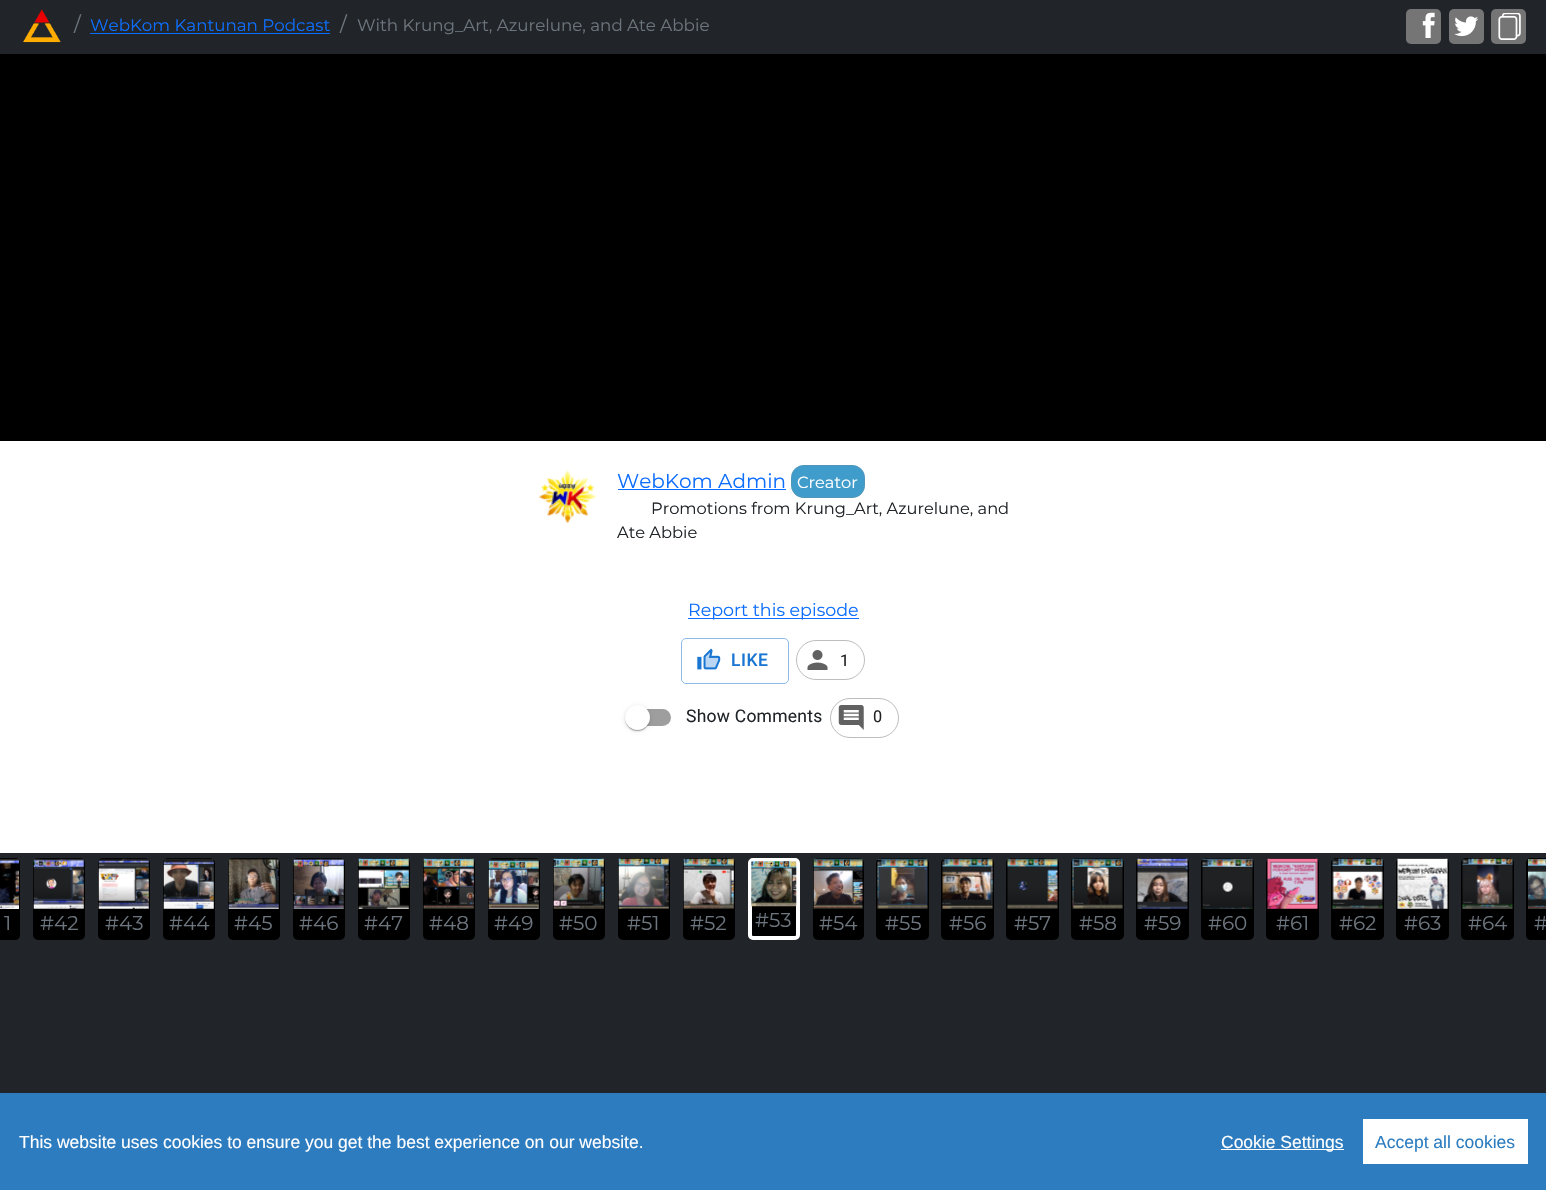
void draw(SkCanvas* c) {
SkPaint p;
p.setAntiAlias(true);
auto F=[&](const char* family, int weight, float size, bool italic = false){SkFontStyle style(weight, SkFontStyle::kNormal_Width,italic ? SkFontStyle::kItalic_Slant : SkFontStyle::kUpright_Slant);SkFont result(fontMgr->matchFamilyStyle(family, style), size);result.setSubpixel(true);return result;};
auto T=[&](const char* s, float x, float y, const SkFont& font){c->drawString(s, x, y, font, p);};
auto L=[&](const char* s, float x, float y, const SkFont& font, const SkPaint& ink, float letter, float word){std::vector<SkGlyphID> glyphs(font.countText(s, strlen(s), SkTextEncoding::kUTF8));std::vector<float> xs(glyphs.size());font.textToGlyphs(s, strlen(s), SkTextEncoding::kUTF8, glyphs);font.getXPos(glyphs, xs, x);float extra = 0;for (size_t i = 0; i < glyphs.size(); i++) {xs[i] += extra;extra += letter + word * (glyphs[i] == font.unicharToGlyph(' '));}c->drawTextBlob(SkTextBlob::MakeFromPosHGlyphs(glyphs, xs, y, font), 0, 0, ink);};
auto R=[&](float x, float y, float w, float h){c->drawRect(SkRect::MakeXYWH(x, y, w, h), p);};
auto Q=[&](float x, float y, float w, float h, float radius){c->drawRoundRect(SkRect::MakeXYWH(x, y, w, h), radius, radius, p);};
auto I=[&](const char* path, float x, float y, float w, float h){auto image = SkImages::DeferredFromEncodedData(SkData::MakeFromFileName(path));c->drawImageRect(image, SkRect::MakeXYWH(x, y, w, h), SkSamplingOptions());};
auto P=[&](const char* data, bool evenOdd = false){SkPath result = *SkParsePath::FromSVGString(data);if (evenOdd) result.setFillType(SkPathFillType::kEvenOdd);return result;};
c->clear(0xffffffff);
p.setColor(0xff212529);
R(0,0,1546,54);
I("1.png",23,9,38,34);
auto f1 = F("Montserrat",400,20);
p.setColor(0xff6c757d);
T("/",74,31,f1);
auto f2 = F("Montserrat",400,16.7);
p.setColor(0xff0d6efd);
T("WebKom Kantunan Podcast",90,31,f2);
R(90,33,240,1);
p.setColor(0xff6c757d);
T("/",340,31,f1);
T("With Krung_Art, Azurelune, and Ate Abbie",357,31,f2);
p.setColor(0xff757575);
Q(1406,9,35,35,5);
I("2.png",1422,12,13,26);
Q(1449,9,35,35,5);
I("3.png",1454,16,25,21);
Q(1491,9,35,35,5);
I("4.png",1498,13,23,27);
p.setColor(0xff000000);
R(0,54,1546,387);
I("5.png",538,470,59,53);
p.setColor(0xff0d6efd);
T("WebKom Admin",617,488,f1);
R(618,489,168,1);
p.setColor(0xff409dcb);
Q(791,465,74,33,13);
p.setStroke(true);
p.setStrokeWidth(1);
p.setColor(0x40808080);
c->drawRoundRect(SkRect::MakeXYWH(791.5,465.5,73,32),12.5,12.5,p);
auto f3 = F("Montserrat",400,16.25);
p.setStroke(false);
p.setColor(0xffffffff);
T("Creator",797,488,f3);
p.setColor(0xff212529);
T("Promotions from Krung_Art, Azurelune, and",651,514,f3);
T("Ate Abbie",617,538,f3);
p.setColor(0xff0d6efd);
R(688,618,171,1);
auto f4 = F("Montserrat",400,17.5);
T("Report this episode",688,616,f4);
p.setStroke(true);
p.setColor(0xff8cbbe9);
c->drawRoundRect(SkRect::MakeXYWH(681.5,638.5,107,45),4.5,4.5,p);
I("6.png",697,648,24,22);
auto f5 = F("Roboto",500,17.5);
p.setStroke(false);
p.setColor(0xff1976d2);
L("LIKE",731,666,f5,p,.5,0);
p.setStroke(true);
p.setColor(0xffbdbdbd);
c->drawRoundRect(SkRect::MakeXYWH(796.5,640.5,68,39),19.5,19.5,p);
I("7.png",807,650,21,20);
auto f6 = F("Roboto",400,16.25);
p.setStroke(false);
p.setColor(0xff212121);
T("1",840,666,f6);
p.setColor(0xff9e9e9e);
Q(629,709,42,17,8.5);
p.setColor(0x1f000000);
p.setMaskFilter(SkMaskFilter::MakeBlur(kNormal_SkBlurStyle, 2));
c->drawRoundRect(SkRect::MakeXYWH(625,706,25,25),12.5,12.5,p);
p.setMaskFilter(nullptr);
p.setColor(0x24000000);
p.setMaskFilter(SkMaskFilter::MakeBlur(kNormal_SkBlurStyle, .5));
c->drawRoundRect(SkRect::MakeXYWH(625,706,25,25),12.5,12.5,p);
p.setMaskFilter(nullptr);
p.setColor(0x33000000);
p.setMaskFilter(SkMaskFilter::MakeBlur(kNormal_SkBlurStyle, .5));
c->drawRoundRect(SkRect::MakeXYWH(626,709,23,22),11,11,p);
p.setMaskFilter(nullptr);
p.setColor(0xffffffff);
c->drawCircle(637.5,717.5,12.5,p);
auto f7 = F("Roboto",400,17.5);
p.setColor(0xff212529);
L("Show Comments",686,722,f7,p,.25,0);
p.setStroke(true);
p.setColor(0xffbdbdbd);
c->drawRoundRect(SkRect::MakeXYWH(830.5,698.5,68,39),19.5,19.5,p);
I("8.png",838,705,26,25);
p.setStroke(false);
p.setColor(0xff212121);
L("0",873,722,f6,p,.25,0);
p.setColor(0xff212529);
R(0,853,1546,240);
p.setColor(0xff000000);
c->drawPath(P("M0 858h15c3 0 5 2 5 5v72c0 3-2 5-5 5h-15z"),p);
I("9.png",0,859,19,50);
p.setColor(0xff6c757d);
T("1",4,930,f1);
p.setColor(0xff000000);
Q(33,858,52,82,5);
I("10.png",33,858,51,51);
p.setColor(0xff6c757d);
T("#42",40,930,f1);
p.setColor(0xff000000);
Q(98,858,52,82,5);
I("11.png",98,858,51,51);
p.setColor(0xff6c757d);
T("#43",105,930,f1);
p.setColor(0xff000000);
Q(163,858,52,82,5);
I("12.png",163,858,51,51);
p.setColor(0xff6c757d);
T("#44",169,930,f1);
p.setColor(0xff000000);
Q(228,858,52,82,5);
I("13.png",228,858,51,51);
p.setColor(0xff6c757d);
T("#45",234,930,f1);
p.setColor(0xff000000);
Q(293,858,52,82,5);
I("14.png",293,858,51,51);
p.setColor(0xff6c757d);
T("#46",299,930,f1);
p.setColor(0xff000000);
Q(358,858,52,82,5);
I("15.png",358,858,51,51);
p.setColor(0xff6c757d);
T("#47",364,930,f1);
p.setColor(0xff000000);
Q(423,858,52,82,5);
I("16.png",423,858,51,51);
p.setColor(0xff6c757d);
T("#48",429,930,f1);
p.setColor(0xff000000);
Q(488,858,52,82,5);
I("17.png",488,858,51,51);
p.setColor(0xff6c757d);
T("#49",494,930,f1);
p.setColor(0xff000000);
Q(553,858,52,82,5);
I("18.png",553,858,51,51);
p.setColor(0xff6c757d);
T("#50",559,930,f1);
p.setColor(0xff000000);
Q(618,858,52,82,5);
I("19.png",618,858,51,51);
p.setColor(0xff6c757d);
T("#51",627,930,f1);
p.setColor(0xff000000);
Q(683,858,52,82,5);
I("20.png",683,858,51,51);
p.setColor(0xff6c757d);
T("#52",690,930,f1);
p.setColor(0xff000000);
c->drawRoundRect(SkRect::MakeXYWH(750,860,48,78),3,3,p);
p.setStroke(true);
p.setStrokeWidth(4);
p.setColor(0xffffffff);
c->drawRoundRect(SkRect::MakeXYWH(750,860,48,78),3,3,p);
I("21.png",751,861,46,46);
p.setStroke(false);
p.setColor(0xff6c757d);
T("#53",755,927,f1);
p.setColor(0xff000000);
Q(813,858,51,82,5);
I("22.png",813,858,50,51);
p.setColor(0xff6c757d);
T("#54",819,930,f1);
p.setColor(0xff000000);
Q(876,858,53,82,5);
I("23.png",877,858,51,51);
p.setColor(0xff6c757d);
T("#55",885,930,f1);
p.setColor(0xff000000);
Q(941,858,53,82,5);
I("24.png",942,858,51,51);
p.setColor(0xff6c757d);
T("#56",949,930,f1);
p.setColor(0xff000000);
Q(1006,858,53,82,5);
I("25.png",1007,858,51,51);
p.setColor(0xff6c757d);
T("#57",1014,930,f1);
p.setColor(0xff000000);
Q(1071,858,53,82,5);
I("26.png",1072,858,51,51);
p.setColor(0xff6c757d);
T("#58",1079,930,f1);
p.setColor(0xff000000);
Q(1136,858,53,82,5);
I("27.png",1137,858,51,51);
p.setColor(0xff6c757d);
T("#59",1144,930,f1);
p.setColor(0xff000000);
Q(1201,858,53,82,5);
I("28.png",1202,858,51,51);
p.setColor(0xff6c757d);
T("#60",1208,930,f1);
p.setColor(0xff000000);
Q(1266,858,53,82,5);
I("29.png",1267,858,51,51);
p.setColor(0xff6c757d);
T("#61",1276,930,f1);
p.setColor(0xff000000);
Q(1331,858,53,82,5);
I("30.png",1332,858,51,51);
p.setColor(0xff6c757d);
T("#62",1339,930,f1);
p.setColor(0xff000000);
Q(1396,858,53,82,5);
I("31.png",1397,858,51,51);
p.setColor(0xff6c757d);
T("#63",1404,930,f1);
p.setColor(0xff000000);
Q(1461,858,53,82,5);
I("32.png",1462,858,51,51);
p.setColor(0xff6c757d);
T("#64",1468,930,f1);
p.setColor(0xff000000);
c->drawPath(P("M1531 858h15v82h-15c-3 0-5-2-5-5v-72c0-3 2-5 5-5z"),p);
I("33.png",1528,859,18,50);
p.setColor(0xff6c757d);
T("#",1534,930,f1);
p.setColor(0xff2c7cbf);
R(0,1093,1546,97);
auto f8 = F("Liberation Sans",400,17.5);
p.setColor(0xffffffff);
T("This website uses cookies to ensure you get the best experience on our website.",19,1148,f8);
R(1221,1149,123,1);
T("Cookie Settings",1221,1148,f8);
R(1363,1119,165,45);
p.setColor(0xff2c7cbf);
T("Accept all cookies",1375,1148,f8);
}
